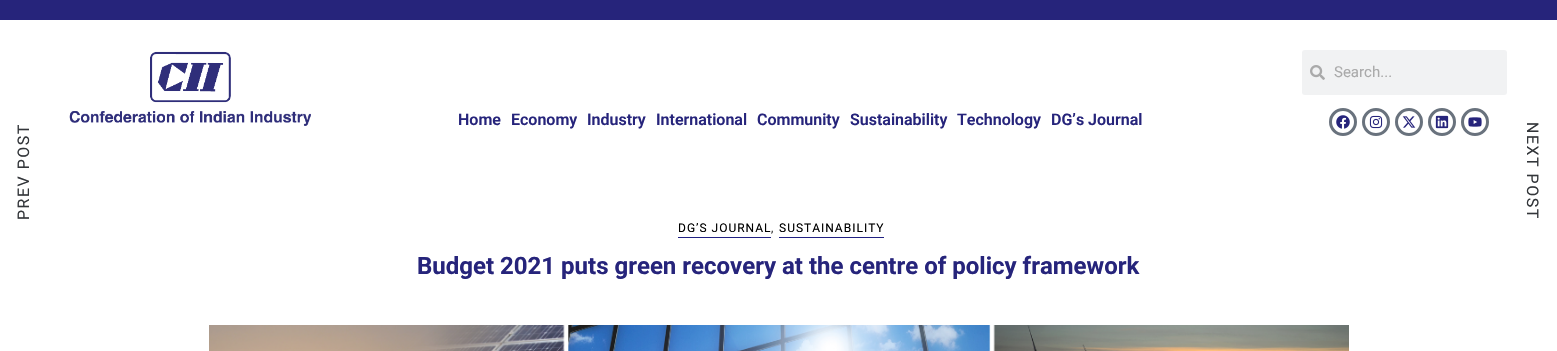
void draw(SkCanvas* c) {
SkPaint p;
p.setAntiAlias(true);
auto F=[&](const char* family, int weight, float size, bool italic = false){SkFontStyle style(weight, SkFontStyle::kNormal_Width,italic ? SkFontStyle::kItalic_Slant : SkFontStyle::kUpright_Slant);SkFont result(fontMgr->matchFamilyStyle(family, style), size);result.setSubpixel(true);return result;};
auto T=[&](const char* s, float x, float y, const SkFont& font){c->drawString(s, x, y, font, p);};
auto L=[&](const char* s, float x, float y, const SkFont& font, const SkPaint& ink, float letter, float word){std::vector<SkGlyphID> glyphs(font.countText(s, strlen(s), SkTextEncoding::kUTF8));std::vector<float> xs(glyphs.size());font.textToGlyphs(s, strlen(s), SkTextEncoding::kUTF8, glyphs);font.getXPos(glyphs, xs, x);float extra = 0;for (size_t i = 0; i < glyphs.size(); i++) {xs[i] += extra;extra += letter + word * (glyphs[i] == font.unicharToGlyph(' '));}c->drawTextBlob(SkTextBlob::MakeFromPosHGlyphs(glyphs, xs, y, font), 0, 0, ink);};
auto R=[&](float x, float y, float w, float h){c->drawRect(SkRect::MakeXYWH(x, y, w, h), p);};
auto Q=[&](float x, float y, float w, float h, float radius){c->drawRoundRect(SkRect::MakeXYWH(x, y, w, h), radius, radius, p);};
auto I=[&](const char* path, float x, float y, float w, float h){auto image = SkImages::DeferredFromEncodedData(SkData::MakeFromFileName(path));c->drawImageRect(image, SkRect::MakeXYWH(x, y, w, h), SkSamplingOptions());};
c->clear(0xffffffff);
p.setColor(0xff26247b);
R(0,0,1557,20);
I("1.png",69,51,242,75);
p.setColor(0xfff1f2f3);
Q(1302,50,205,45,3);
I("2.png",1310,65,15,15);
auto f1 = F("Roboto",400,15);
p.setColor(0xffaaaaaa);
T("Search...",1334,77,f1);
p.setStroke(true);
p.setStrokeWidth(3);
p.setColor(0xff69727d);
c->drawCircle(1343,122,12.5,p);
I("3.png",1336,115,14,14);
c->drawCircle(1376,122,12.5,p);
I("4.png",1369,115,14,14);
c->drawCircle(1409,122,12.5,p);
I("5.png",1402,116,14,12);
c->drawCircle(1442,122,12.5,p);
I("6.png",1435,115,14,14);
c->drawCircle(1475,122,12.5,p);
I("7.png",1468,117,14,10);
auto f2 = F("Roboto",600,16);
p.setStroke(false);
p.setColor(0xff26247b);
T("Home",458,125,f2);
T("Economy",511,125,f2);
T("Industry",587,125,f2);
T("International",656,125,f2);
T("Community",757,125,f2);
T("Sustainability",850,125,f2);
T("Technology",957,125,f2);
T("DG’s Journal",1051,125,f2);
auto f3 = F("Roboto",400,16);
p.setColor(0xff33363a);
c->save();
c->rotate(-90,29,220);
L("PREV POST",29,220,f3,p,1.5,0);
c->restore();
c->save();
c->rotate(90,1527,122);
L("NEXT POST",1527,122,f3,p,1.5,0);
c->restore();
auto f4 = F("Roboto",400,12);
p.setColor(0xff000000);
L("DG’S JOURNAL",678,232,f4,p,1,0);
p.setColor(0xff333333);
L(",",771,232,f4,p,1,0);
p.setColor(0xff202082);
R(678,237,93,1);
R(779,237,105,1);
p.setColor(0xff000000);
L("SUSTAINABILITY",779,232,f4,p,1,0);
auto f5 = F("Roboto",700,24);
p.setColor(0xff26247b);
T("Budget 2021 puts green recovery at the centre of policy framework",417,274,f5);
I("8.png",209,325,1140,26);
}
